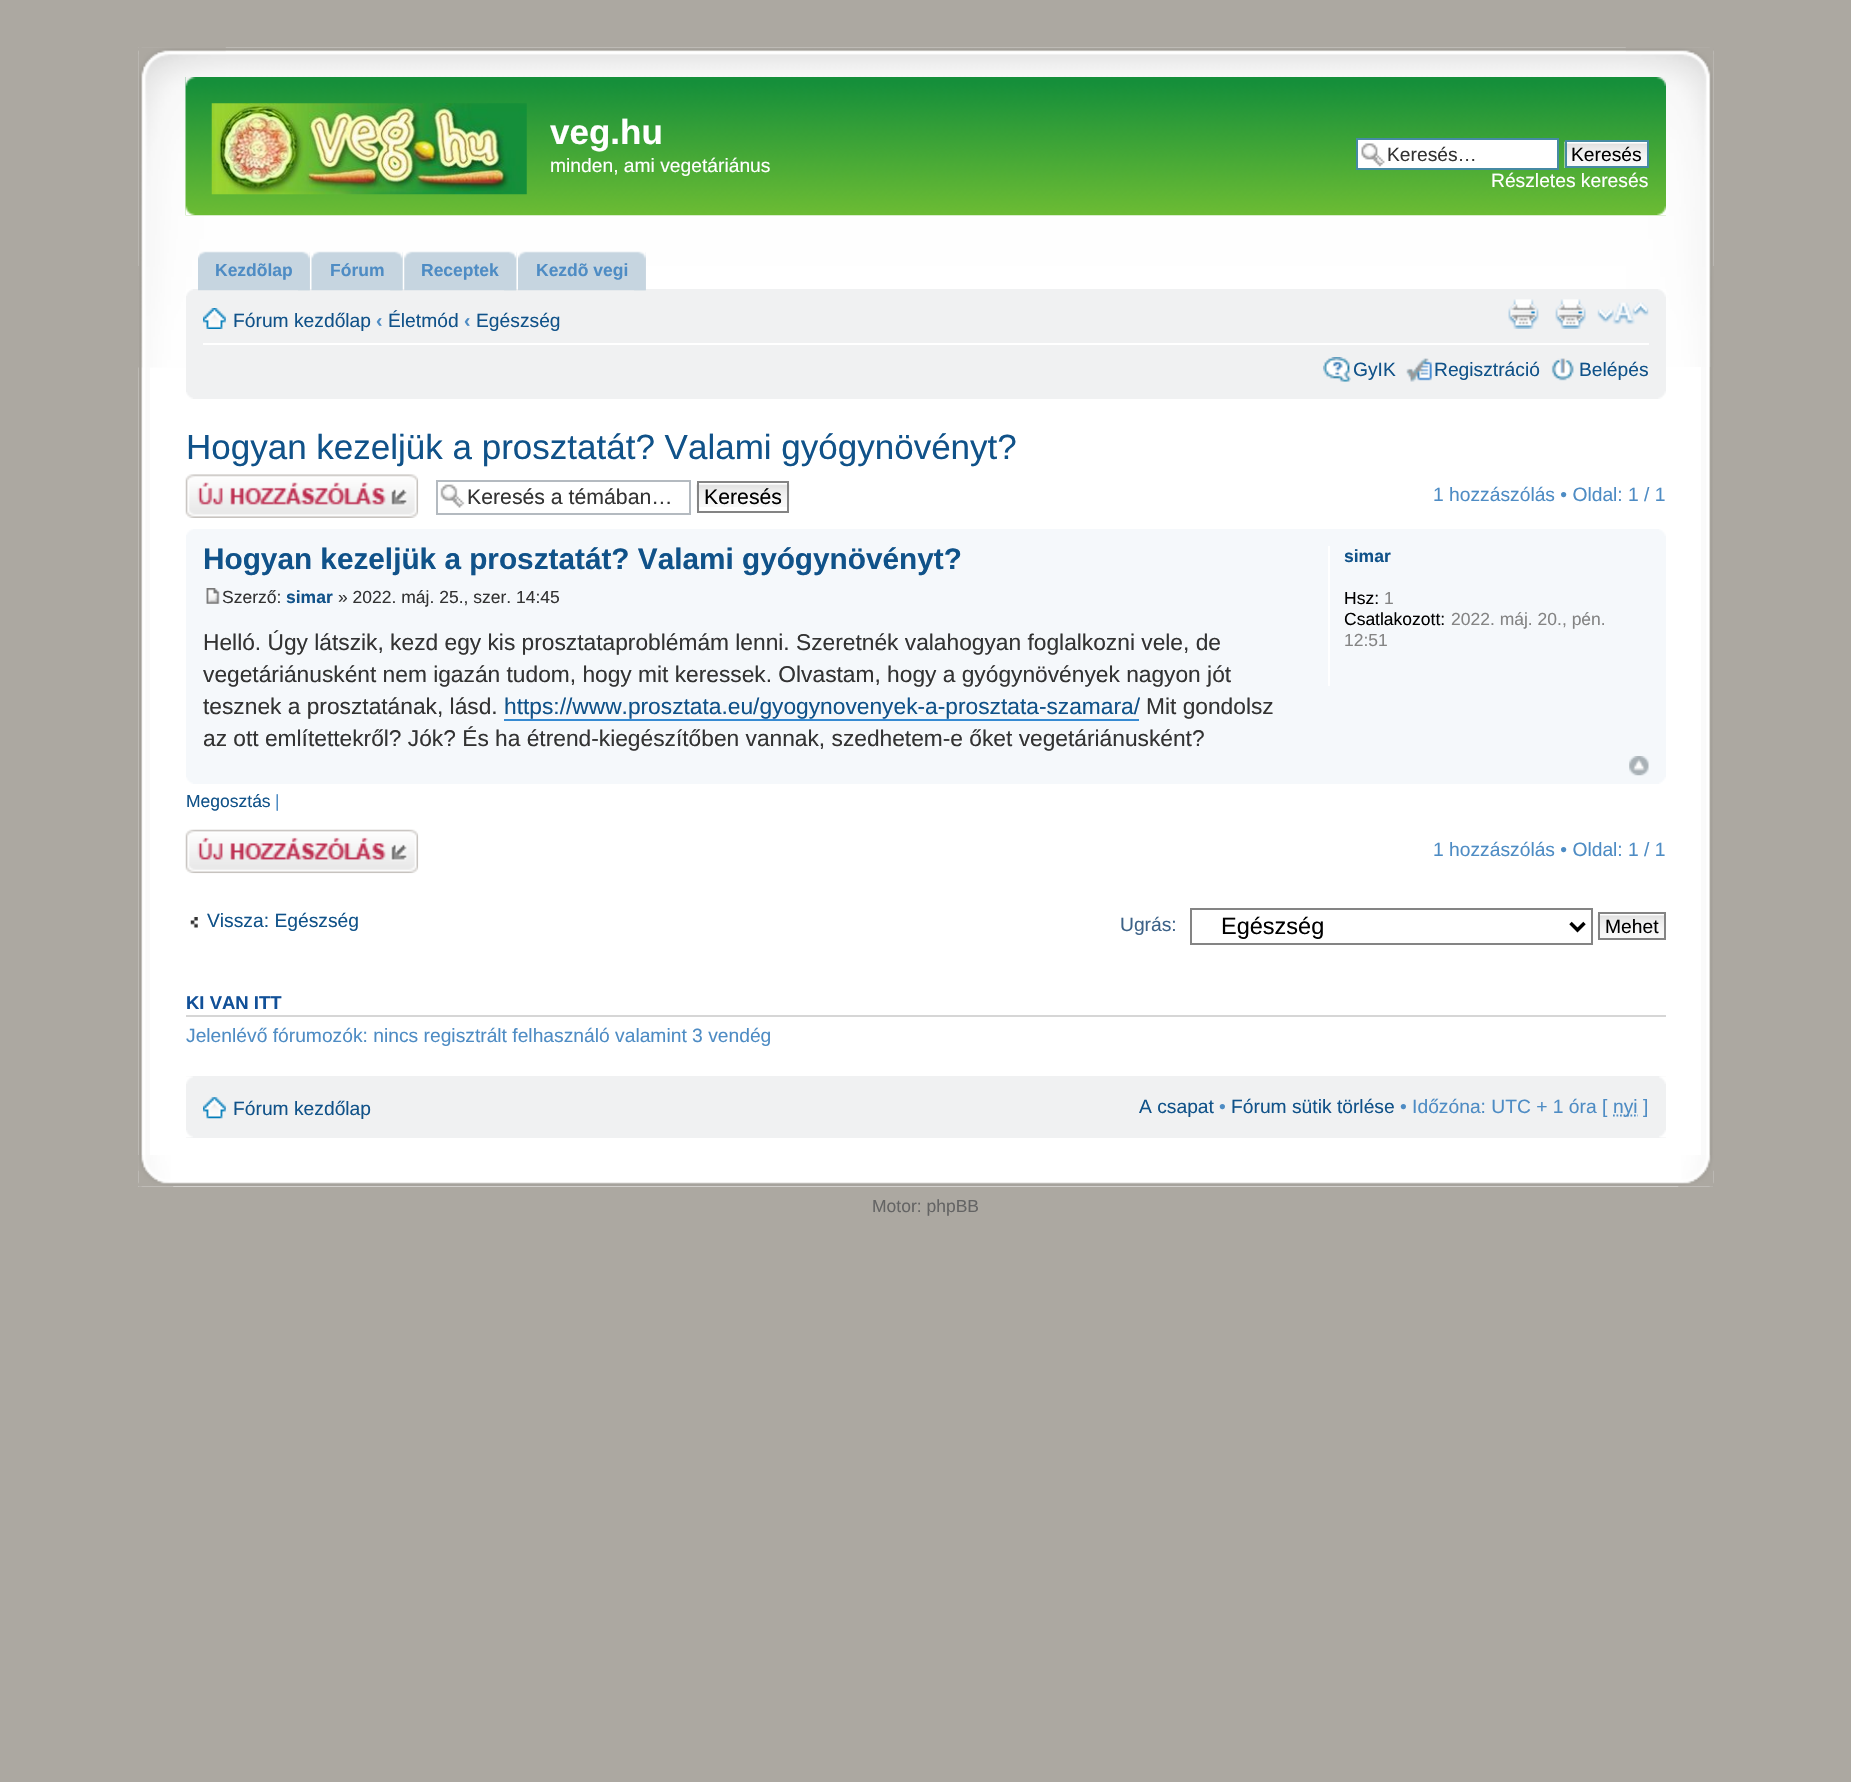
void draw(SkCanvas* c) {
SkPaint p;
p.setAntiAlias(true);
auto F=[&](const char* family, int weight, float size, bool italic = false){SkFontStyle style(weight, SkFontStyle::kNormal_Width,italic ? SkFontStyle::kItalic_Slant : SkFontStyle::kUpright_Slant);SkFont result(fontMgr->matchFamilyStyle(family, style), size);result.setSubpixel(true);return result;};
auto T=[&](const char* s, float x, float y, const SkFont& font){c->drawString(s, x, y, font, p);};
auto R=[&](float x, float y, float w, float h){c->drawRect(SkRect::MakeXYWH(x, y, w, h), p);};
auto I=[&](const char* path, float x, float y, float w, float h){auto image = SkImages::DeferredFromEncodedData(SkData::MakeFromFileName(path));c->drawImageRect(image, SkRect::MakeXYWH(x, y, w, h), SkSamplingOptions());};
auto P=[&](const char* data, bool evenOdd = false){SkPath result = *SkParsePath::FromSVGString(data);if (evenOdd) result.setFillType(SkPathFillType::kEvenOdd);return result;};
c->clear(0xffaca8a1);
p.setColor(0xffffffff);
R(138,47,1575,1140);
I("1.png",138,47,12,1140);
I("2.png",1701,47,12,1140);
I("3.png",138,47,1576,219);
I("4.png",138,47,88,321);
I("5.png",1625,47,89,320);
I("6.png",185,77,1481,139);
I("7.png",185,77,11,9);
I("8.png",1656,77,10,9);
I("9.png",211,103,316,92);
auto f1 = F("Liberation Sans",700,35);
T("veg.hu",550,144,f1);
auto f2 = F("Liberation Sans",400,19.25);
T("minden, ami vegetáriánus",550,172,f2);
R(1358,140,199,28);
I("10.png",1361,143,24,24);
p.setStroke(true);
p.setStrokeWidth(2);
p.setColor(0xff468aa3);
c->drawRect(SkRect::MakeXYWH(1357,139,201,30),p);
p.setStroke(false);
p.setColor(0xff333333);
T("Keresés…",1387,161,f2);
I("11.png",1564,141,83,27);
p.setStroke(true);
p.setColor(0xff468aa3);
c->drawRect(SkRect::MakeXYWH(1566,141,82,26),p);
p.setStroke(false);
p.setColor(0xff000000);
T("Keresés",1571,161,f2);
p.setColor(0xffffffff);
T("Részletes keresés",1491,187,f2);
I("12.png",185,206,10,10);
I("13.png",1657,206,9,10);
p.setColor(0xfff0f1f2);
R(186,289,1480,110);
I("14.png",198,251,112,40);
I("15.png",298,251,12,40);
auto f3 = F("Liberation Sans",700,17.5);
p.setColor(0xff4e8cc4);
T("Kezdõlap",215,276,f3);
I("16.png",311,251,92,40);
I("17.png",390,251,13,40);
T("Fórum",330,276,f3);
I("18.png",404,251,113,40);
I("19.png",504,251,13,40);
T("Receptek",421,276,f3);
I("20.png",518,251,128,40);
I("21.png",634,251,12,40);
T("Kezdõ vegi",536,276,f3);
I("22.png",186,289,7,7);
I("23.png",1658,289,8,8);
p.setColor(0xffffffff);
R(203,343,1446,2);
I("24.png",203,308,23,21);
p.setColor(0xff105289);
T("Fórum kezdőlap",233,327,f2);
auto f4 = F("Liberation Sans",700,19.25);
p.setColor(0xff4e8cc4);
T("‹",376,327,f4);
p.setColor(0xff105289);
T("Életmód",388,327,f2);
p.setColor(0xff4e8cc4);
T("‹",464,327,f4);
p.setColor(0xff105289);
T("Egészség",476,327,f2);
I("25.png",1508,299,31,30);
I("26.png",1555,299,31,30);
I("27.png",1597,302,52,23);
I("28.png",1323,357,28,25);
T("GyIK",1353,376,f2);
I("29.png",1406,358,26,24);
T("Regisztráció",1434,376,f2);
I("30.png",1551,358,23,23);
T("Belépés",1579,376,f2);
I("31.png",186,392,7,7);
I("32.png",1658,391,8,8);
auto f5 = F("Liberation Sans",400,35);
T("Hogyan kezeljük a prosztatát? Valami gyógynövényt?",186,459,f5);
I("33.png",185,474,234,44);
I("34.png",440,484,25,24);
p.setStroke(true);
p.setColor(0xffb4bac0);
c->drawRect(SkRect::MakeXYWH(437,481,253,33),p);
auto f6 = F("Liberation Sans",400,21.25);
p.setStroke(false);
p.setColor(0xff333333);
T("Keresés a témában…",467,504,f6);
I("35.png",696,484,94,23);
p.setStroke(true);
p.setColor(0xff848484);
c->drawRect(SkRect::MakeXYWH(698,482,90,30),p);
p.setStroke(false);
p.setColor(0xff000000);
T("Keresés",704,504,f6);
p.setColor(0xff4e8cc4);
T("1 hozzászólás • Oldal: 1 / 1",1433,501,f2);
p.setColor(0xfff5f8fb);
R(186,529,1480,255);
I("36.png",186,529,7,6);
I("37.png",1659,529,7,7);
auto f7 = F("Liberation Sans",700,29.75);
p.setColor(0xff105289);
T("Hogyan kezeljük a prosztatát? Valami gyógynövényt?",203,569,f7);
I("38.png",206,588,14,16);
auto f8 = F("Liberation Sans",400,17.5);
p.setColor(0xff333333);
T("Szerző:",222,603,f8);
p.setColor(0xff105289);
T("simar",286,603,f3);
p.setColor(0xff333333);
T("» 2022. máj. 25., szer. 14:45",338,603,f8);
auto f9 = F("Liberation Sans",400,22.75);
T("Helló. Úgy látszik, kezd egy kis prosztataproblémám lenni. Szeretnék valahogyan foglalkozni vele, de",203,650,f9);
T("vegetáriánusként nem igazán tudom, hogy mit keressek. Olvastam, hogy a gyógynövények nagyon jót",203,682,f9);
T("tesznek a prosztatának, lásd.",203,714,f9);
p.setColor(0xff105289);
T("https://www.prosztata.eu/gyogynovenyek-a-prosztata-szamara/",504,714,f9);
p.setColor(0xff368ad2);
R(504,719,635,2);
p.setColor(0xff333333);
T("Mit gondolsz",1146,714,f9);
T("az ott említettekről? Jók? És ha étrend-kiegészítőben vannak, szedhetem-e őket vegetáriánusként?",203,746,f9);
p.setColor(0xffffffff);
R(1328,546,2,140);
p.setColor(0xff105289);
T("simar",1344,562,f3);
p.setColor(0xff000000);
T("Hsz:",1344,604,f8);
p.setColor(0xff848484);
T("1",1384,604,f8);
p.setColor(0xff000000);
T("Csatlakozott:",1344,625,f8);
p.setColor(0xff848484);
T("2022. máj. 20., pén.",1451,625,f8);
T("12:51",1344,646,f8);
I("39.png",1629,756,20,20);
I("40.png",186,777,7,7);
I("41.png",1659,777,7,7);
p.setColor(0xff105289);
T("Megosztás",186,807,f8);
p.setColor(0xff4e8cc4);
T("|",275,807,f8);
I("42.png",185,829,234,45);
T("1 hozzászólás • Oldal: 1 / 1",1433,856,f2);
I("43.png",190,917,8,11);
p.setColor(0xff105289);
T("Vissza: Egészség",207,927,f2);
p.setColor(0xff3d6288);
T("Ugrás:",1120,931,f2);
p.setStroke(true);
p.setColor(0xff848484);
c->drawRect(SkRect::MakeXYWH(1191,909,401,35),p);
p.setStrokeWidth(3.5);
p.setColor(0xff000000);
c->drawPath(P("M1570.5 923l7 7l7-7"),p);
auto f10 = F("Liberation Sans",400,23.5);
p.setStroke(false);
T("Egészség",1221,934,f10);
I("44.png",1597,915,67,23);
p.setStroke(true);
p.setStrokeWidth(2);
p.setColor(0xff848484);
c->drawRect(SkRect::MakeXYWH(1599,913,66,26),p);
p.setStroke(false);
p.setColor(0xff000000);
T("Mehet",1605,933,f2);
p.setColor(0xffd6d6d6);
R(186,1015,1480,2);
auto f11 = F("Liberation Sans",700,18.5);
p.setColor(0xff115098);
T("KI VAN ITT",186,1009,f11);
p.setColor(0xff4e8cc4);
T("Jelenlévő fórumozók: nincs regisztrált felhasználó valamint 3 vendég",186,1042,f2);
p.setColor(0xfff0f1f2);
R(186,1076,1480,62);
I("45.png",186,1076,7,8);
I("46.png",1659,1076,7,8);
I("47.png",203,1097,23,22);
p.setColor(0xff105289);
T("Fórum kezdőlap",233,1115,f2);
T("A csapat",1139,1113,f2);
p.setColor(0xff4e8cc4);
T("•",1219,1113,f2);
p.setColor(0xff105289);
T("Fórum sütik törlése",1231,1113,f2);
p.setColor(0xff4e8cc4);
T("• Időzóna: UTC + 1 óra [",1400,1113,f2);
p.setStroke(true);
p.setStrokeWidth(1.8);
p.setPathEffect(SkDashPathEffect::Make({{1.75f,1.75f}}, 0));
c->drawPath(P("M1613 1115.5h25"),p);
p.setPathEffect(nullptr);
p.setStroke(false);
T("nyi ]",1613,1113,f2);
I("48.png",186,1130,7,8);
I("49.png",1659,1130,7,8);
I("50.png",138,1170,1576,17);
I("51.png",138,1155,36,32);
I("52.png",1678,1155,36,32);
p.setColor(0xff646464);
T("Motor: phpBB",872,1212,f8);
}
